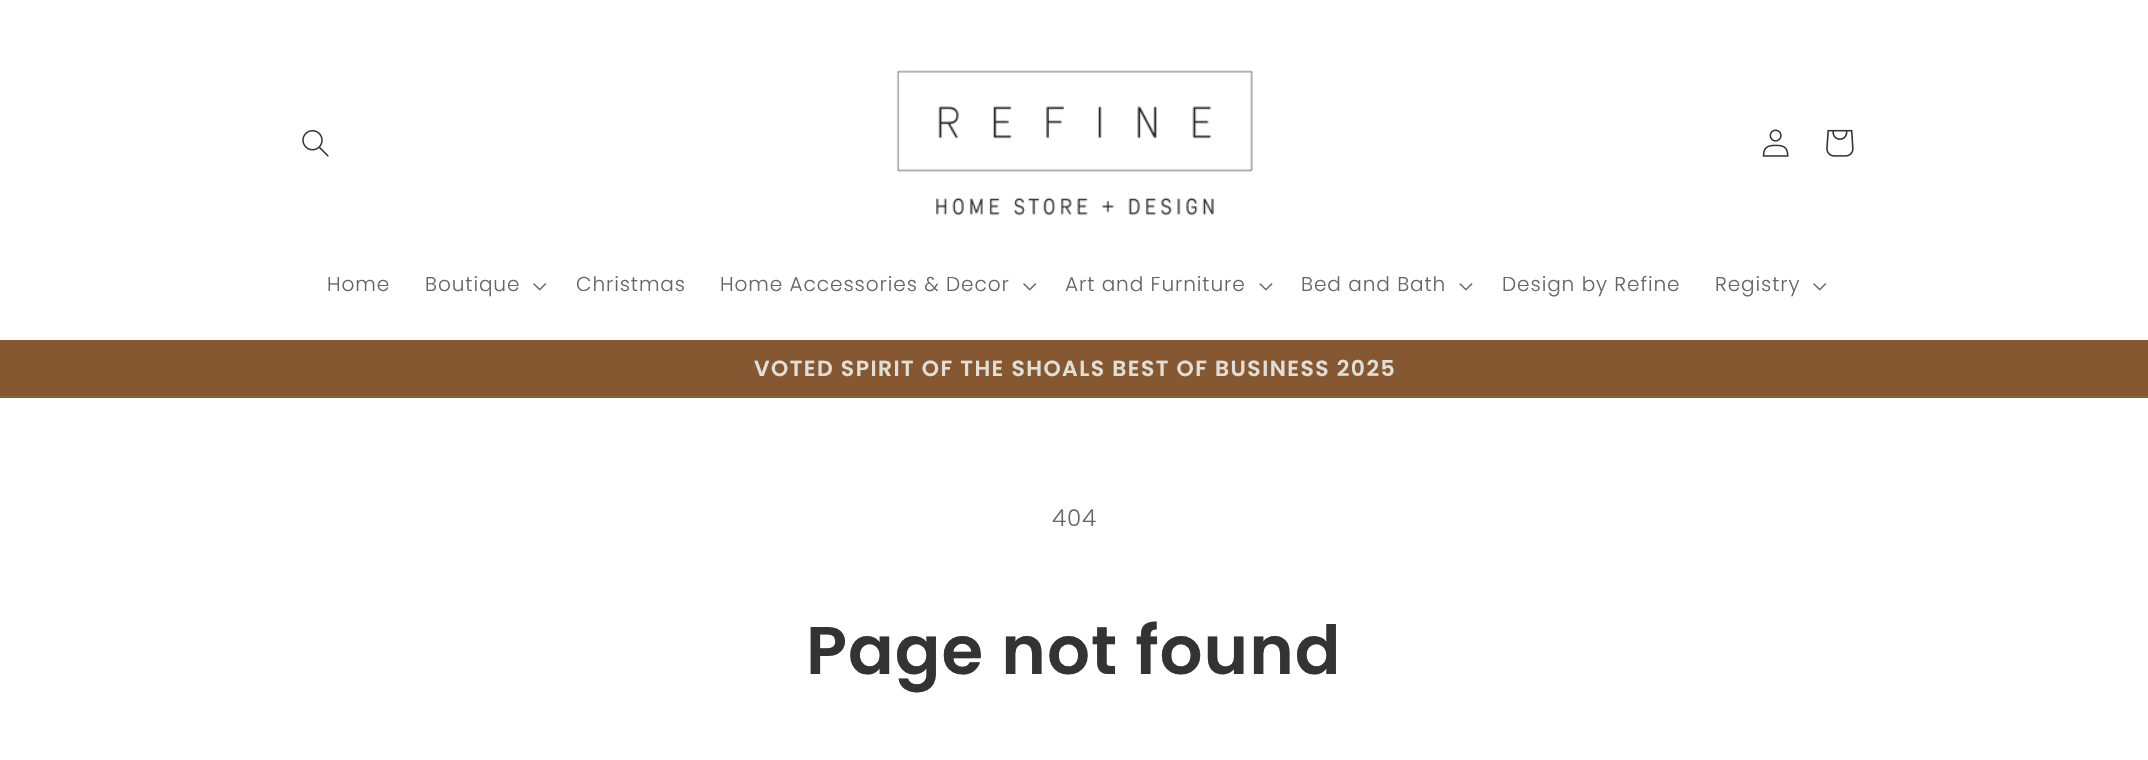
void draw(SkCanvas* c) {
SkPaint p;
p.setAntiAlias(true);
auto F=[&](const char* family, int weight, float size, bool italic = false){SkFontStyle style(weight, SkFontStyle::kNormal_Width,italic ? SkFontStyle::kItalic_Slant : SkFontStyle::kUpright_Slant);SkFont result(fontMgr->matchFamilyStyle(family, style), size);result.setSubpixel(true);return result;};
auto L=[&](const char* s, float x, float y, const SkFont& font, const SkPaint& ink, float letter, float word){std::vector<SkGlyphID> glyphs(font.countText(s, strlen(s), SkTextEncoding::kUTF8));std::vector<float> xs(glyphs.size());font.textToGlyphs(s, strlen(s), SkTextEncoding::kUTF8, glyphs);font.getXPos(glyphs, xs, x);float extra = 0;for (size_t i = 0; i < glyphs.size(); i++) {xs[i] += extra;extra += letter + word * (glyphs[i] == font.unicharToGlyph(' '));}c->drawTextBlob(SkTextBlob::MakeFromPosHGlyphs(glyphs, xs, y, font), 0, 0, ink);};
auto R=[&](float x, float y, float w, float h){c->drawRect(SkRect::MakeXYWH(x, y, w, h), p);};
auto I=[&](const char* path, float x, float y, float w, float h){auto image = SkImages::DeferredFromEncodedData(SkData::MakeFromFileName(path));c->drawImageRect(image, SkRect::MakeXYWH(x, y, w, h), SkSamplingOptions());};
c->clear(0xffffffff);
I("1.png",302,130,27,27);
I("2.png",896,70,357,146);
I("3.png",1762,129,27,28);
I("4.png",1826,129,28,28);
auto f1 = F("Poppins",300,20.1);
p.setColor(0xff666666);
L("Home",327,291,f1,p,.9,0);
L("Boutique",425,291,f1,p,.9,0);
I("5.png",533,283,14,8);
L("Christmas",576,291,f1,p,.9,0);
L("Home Accessories & Decor",720,291,f1,p,.9,0);
I("6.png",1023,283,13,8);
L("Art and Furniture",1065,291,f1,p,.9,0);
I("7.png",1259,283,14,8);
L("Bed and Bath",1301,291,f1,p,.9,0);
I("7.png",1459,283,14,8);
L("Design by Refine",1502,291,f1,p,.9,0);
L("Registry",1715,291,f1,p,.9,0);
I("5.png",1813,283,14,8);
p.setColor(0xff855832);
R(0,340,2148,58);
p.setColor(0xff8c633f);
R(0,396,2148,1);
auto f2 = F("Poppins",600,21.95);
p.setColor(0xffdfdfd8);
L("VOTED SPIRIT OF THE SHOALS BEST OF BUSINESS 2025",754,376,f2,p,1.45,0);
auto f3 = F("Poppins",300,23);
p.setColor(0xff666666);
L("404",1052,526,f3,p,.9,0);
auto f4 = F("Poppins",600,67.5);
p.setColor(0xff333333);
L("Page not found",806,674,f4,p,1,0);
}
